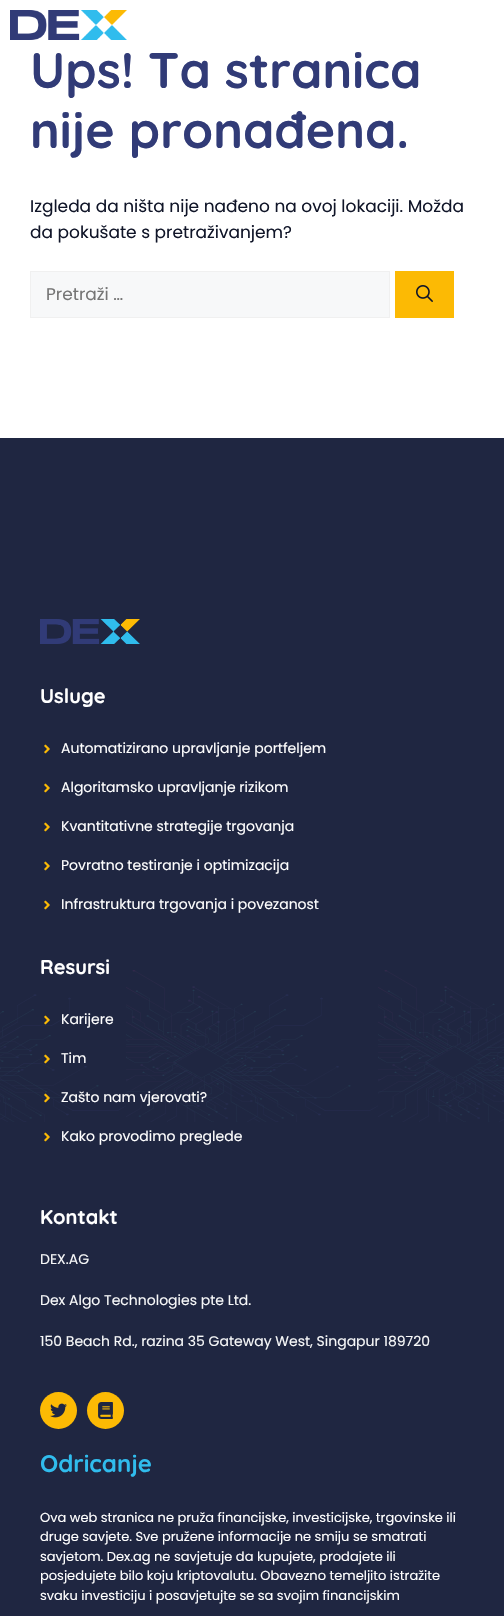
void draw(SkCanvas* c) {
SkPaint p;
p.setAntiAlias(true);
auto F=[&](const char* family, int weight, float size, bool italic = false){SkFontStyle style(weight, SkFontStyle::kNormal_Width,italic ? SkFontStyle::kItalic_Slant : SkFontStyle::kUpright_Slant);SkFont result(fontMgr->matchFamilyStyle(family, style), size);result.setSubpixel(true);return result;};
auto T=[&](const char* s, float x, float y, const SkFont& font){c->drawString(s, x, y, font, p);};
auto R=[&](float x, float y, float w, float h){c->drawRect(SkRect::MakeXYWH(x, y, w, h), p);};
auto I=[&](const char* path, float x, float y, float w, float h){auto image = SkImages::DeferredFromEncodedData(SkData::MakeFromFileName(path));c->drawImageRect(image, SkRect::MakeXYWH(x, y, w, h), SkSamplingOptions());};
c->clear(0xffffffff);
I("1.png",10,10,117,30);
auto f1 = F("Quicksand",700,50);
p.setColor(0xff313b77);
T("Ups! Ta stranica",30,88,f1);
T("nije pronađena.",30,148,f1);
auto f2 = F("Poppins",400,17);
p.setColor(0xff101528);
T("Izgleda da ništa nije nađeno na ovoj lokaciji. Možda",30,212,f2);
T("da pokušate s pretraživanjem?",30,238,f2);
p.setColor(0xfff7f8f9);
c->drawRect(SkRect::MakeXYWH(30.5,271.5,359,46),p);
p.setStroke(true);
p.setStrokeWidth(1);
p.setColor(0xfff0f0f0);
c->drawRect(SkRect::MakeXYWH(30.5,271.5,359,46),p);
p.setStroke(false);
p.setColor(0xff757575);
T("Pretraži …",46,300,f2);
p.setColor(0xfffcba04);
R(395,271,59,47);
I("2.png",416,285,17,17);
p.setColor(0xff1f2641);
R(0,438,504,1178);
I("3.png",0,970,504,152);
I("4.png",40,619,100,25);
auto f3 = F("Quicksand",700,20);
p.setColor(0xffffffff);
T("Usluge",40,703,f3);
I("5.png",44,744,6,10);
auto f4 = F("Poppins",400,14);
T("Automatizirano upravljanje portfeljem",61,753,f4);
I("5.png",44,783,6,10);
T("Algoritamsko upravljanje rizikom",61,792,f4);
I("5.png",44,822,6,10);
T("Kvantitativne strategije trgovanja",61,831,f4);
I("5.png",44,861,6,10);
T("Povratno testiranje i optimizacija",61,870,f4);
I("5.png",44,900,6,10);
T("Infrastruktura trgovanja i povezanost",61,909,f4);
T("Resursi",40,974,f3);
I("5.png",44,1015,6,10);
T("Karijere",61,1024,f4);
I("6.png",44,1054,6,10);
T("Tim",61,1063,f4);
I("7.png",44,1093,6,10);
T("Zašto nam vjerovati?",61,1102,f4);
I("5.png",44,1132,6,10);
T("Kako provodimo preglede",61,1141,f4);
T("Kontakt",40,1224,f3);
p.setColor(0xfff7f8f9);
T("DEX.AG",40,1264,f4);
T("Dex Algo Technologies pte Ltd.",40,1305,f4);
T("150 Beach Rd., razina 35 Gateway West, Singapur 189720",40,1346,f4);
p.setColor(0xfffcba04);
c->drawCircle(58.5,1410.5,18.5,p);
I("8.png",50,1403,17,15);
c->drawCircle(105.5,1410.5,18.5,p);
I("9.png",98,1402,15,17);
auto f5 = F("Quicksand",700,24);
p.setColor(0xff30bced);
T("Odricanje",40,1472,f5);
auto f6 = F("Poppins",400,13);
p.setColor(0xffffffff);
T("Ova web stranica ne pruža financijske, investicijske, trgovinske ili",40,1522,f6);
T("druge savjete. Sve pružene informacije ne smiju se smatrati",40,1541,f6);
T("savjetom. Dex.ag ne savjetuje da kupujete, prodajete ili",40,1561,f6);
T("posjedujete bilo koju kriptovalutu. Obavezno temeljito istražite",40,1580,f6);
T("svaku investiciju i posavjetujte se sa svojim financijskim",40,1600,f6);
}
